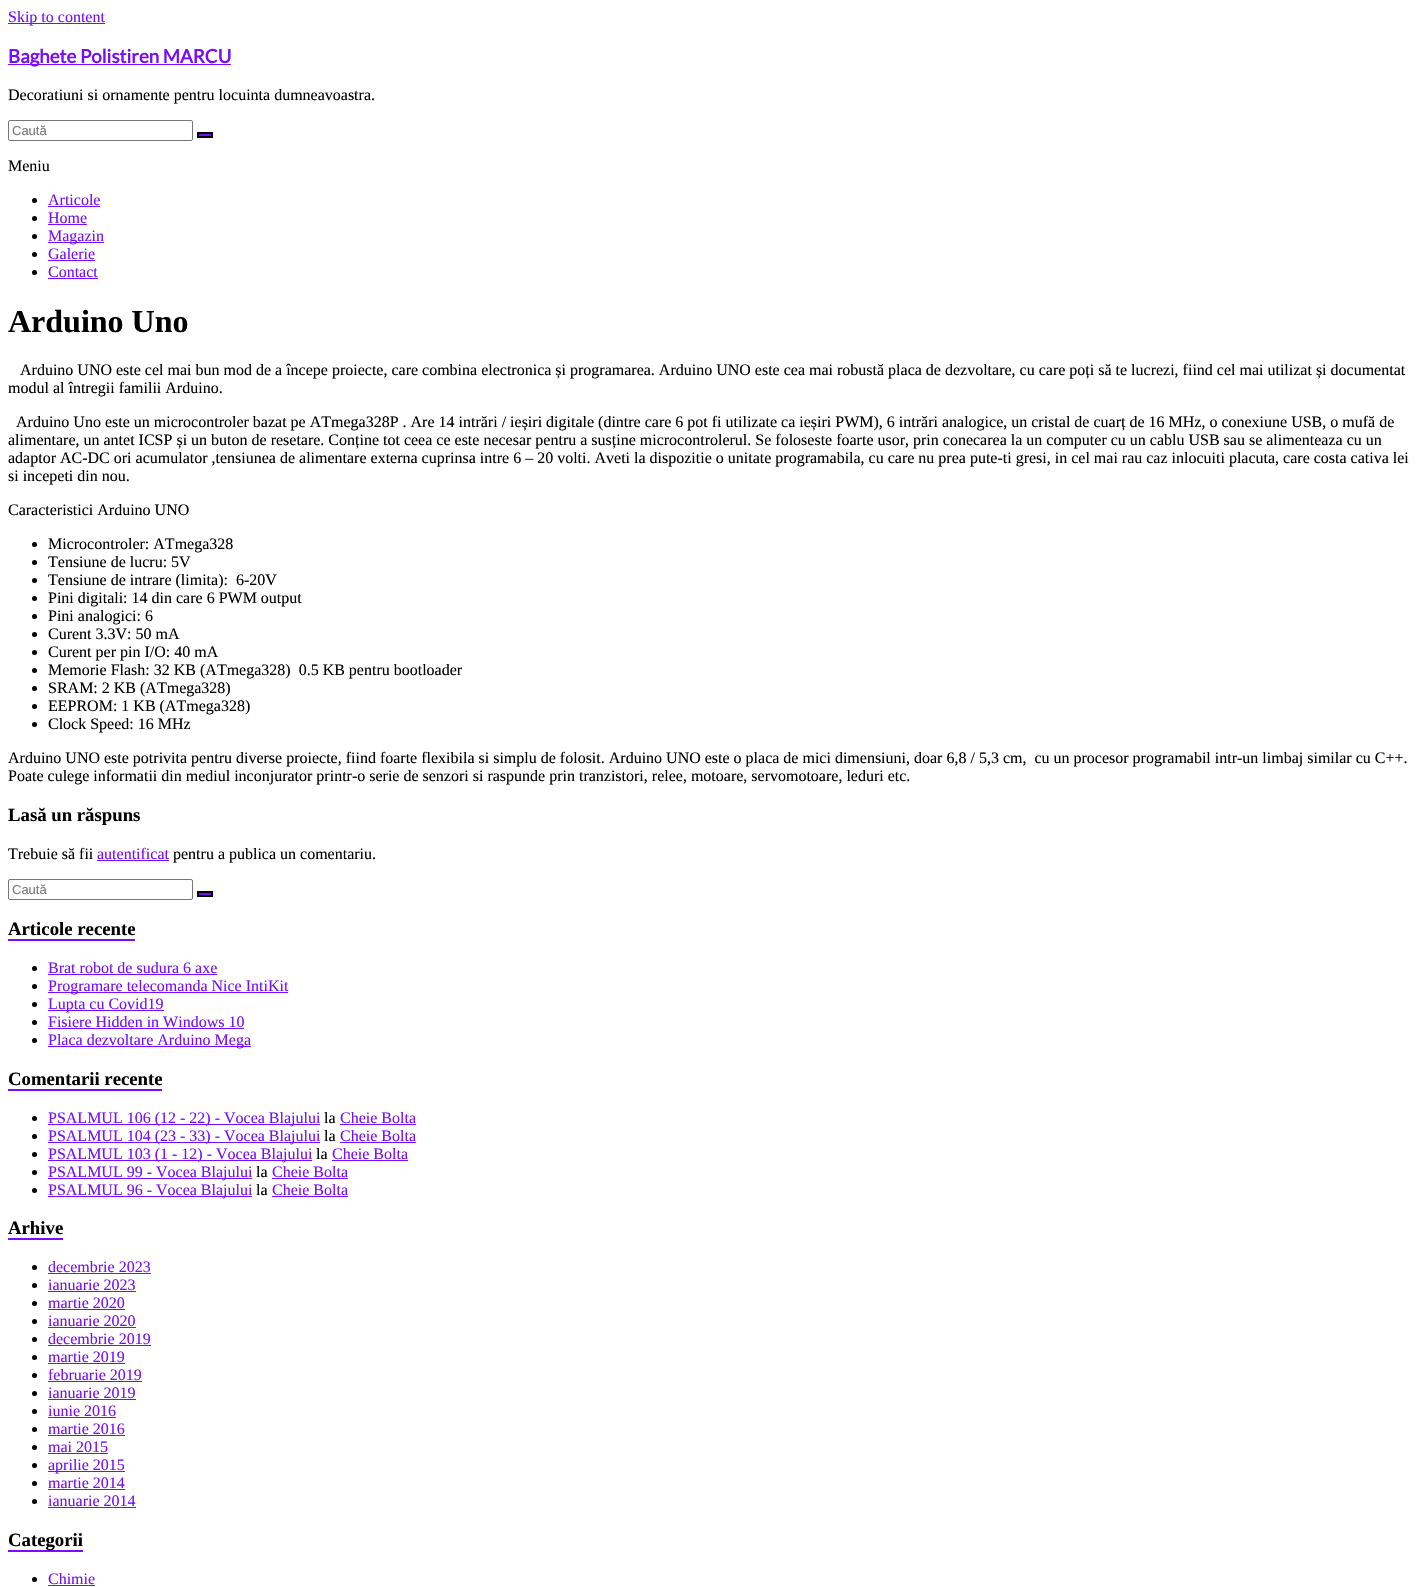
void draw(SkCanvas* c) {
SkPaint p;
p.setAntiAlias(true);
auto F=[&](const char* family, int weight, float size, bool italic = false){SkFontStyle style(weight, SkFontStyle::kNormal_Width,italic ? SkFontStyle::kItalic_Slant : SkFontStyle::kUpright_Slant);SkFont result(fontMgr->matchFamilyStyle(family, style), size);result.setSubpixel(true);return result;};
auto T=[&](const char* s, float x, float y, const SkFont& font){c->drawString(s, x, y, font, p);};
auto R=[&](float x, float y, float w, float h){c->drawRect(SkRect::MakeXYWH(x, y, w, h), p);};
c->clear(0xffffffff);
p.setColor(0xff770ef7);
R(8,23,97,1);
auto f1 = F("Liberation Serif",400,16);
T("Skip to content",8,22,f1);
R(8,64,223,1);
auto f2 = F("Lato",700,18.75);
T("Baghete Polistiren MARCU",8,63,f2);
p.setColor(0xff000000);
T("Decoratiuni si ornamente pentru locuinta dumneavoastra.",8,100,f1);
p.setStroke(true);
p.setStrokeWidth(1);
p.setColor(0xff767676);
c->drawRoundRect(SkRect::MakeXYWH(8.5,120.5,184,20),1.5,1.5,p);
auto f3 = F("Liberation Sans",400,13);
p.setStroke(false);
p.setColor(0xff757575);
T("Caută",12,135,f3);
p.setColor(0xff770ef7);
c->drawRect(SkRect::MakeXYWH(198,133,14,4),p);
p.setStroke(true);
p.setStrokeWidth(2);
p.setColor(0xff000000);
c->drawRect(SkRect::MakeXYWH(198,133,14,4),p);
p.setStroke(false);
T("Meniu",8,171,f1);
c->drawCircle(34.5,200.5,2.5,p);
p.setColor(0xff770ef7);
T("Articole",48,205,f1);
R(48,206,52,1);
p.setColor(0xff000000);
c->drawCircle(34.5,218.5,2.5,p);
p.setColor(0xff770ef7);
T("Home",48,223,f1);
R(48,224,39,1);
p.setColor(0xff000000);
c->drawCircle(34.5,236.5,2.5,p);
p.setColor(0xff770ef7);
R(48,242,56,1);
T("Magazin",48,241,f1);
p.setColor(0xff000000);
c->drawCircle(34.5,254.5,2.5,p);
p.setColor(0xff770ef7);
T("Galerie",48,259,f1);
R(48,260,47,1);
p.setColor(0xff000000);
c->drawCircle(34.5,272.5,2.5,p);
p.setColor(0xff770ef7);
T("Contact",48,277,f1);
R(48,278,50,1);
auto f4 = F("Liberation Serif",700,32);
p.setColor(0xff000000);
T("Arduino Uno",8,332,f4);
T("Arduino UNO este cel mai bun mod de a începe proiecte, care combina electronica și programarea. Arduino UNO este cea mai robustă placa de dezvoltare, cu care poți să te lucrezi, fiind cel mai utilizat și documentat",20,375,f1);
T("modul al întregii familii Arduino.",8,393,f1);
T("Arduino Uno este un microcontroler bazat pe ATmega328P . Are 14 intrări / ieșiri digitale (dintre care 6 pot fi utilizate ca ieșiri PWM), 6 intrări analogice, un cristal de cuarț de 16 MHz, o conexiune USB, o mufă de",16,427,f1);
T("alimentare, un antet ICSP și un buton de resetare. Conține tot ceea ce este necesar pentru a susține microcontrolerul. Se foloseste foarte usor, prin conecarea la un computer cu un cablu USB sau se alimenteaza cu un",8,445,f1);
T("adaptor AC-DC ori acumulator ,tensiunea de alimentare externa cuprinsa intre 6 – 20 volti. Aveti la dispozitie o unitate programabila, cu care nu prea pute-ti gresi, in cel mai rau caz inlocuiti placuta, care costa cativa lei",8,463,f1);
T("si incepeti din nou.",8,481,f1);
T("Caracteristici Arduino UNO",8,515,f1);
c->drawCircle(34.5,544.5,2.5,p);
T("Microcontroler: ATmega328",48,549,f1);
c->drawCircle(34.5,562.5,2.5,p);
T("Tensiune de lucru: 5V",48,567,f1);
c->drawCircle(34.5,580.5,2.5,p);
T("Tensiune de intrare (limita):  6-20V",48,585,f1);
c->drawCircle(34.5,598.5,2.5,p);
T("Pini digitali: 14 din care 6 PWM output",48,603,f1);
c->drawCircle(34.5,616.5,2.5,p);
T("Pini analogici: 6",48,621,f1);
c->drawCircle(34.5,634.5,2.5,p);
T("Curent 3.3V: 50 mA",48,639,f1);
c->drawCircle(34.5,652.5,2.5,p);
T("Curent per pin I/O: 40 mA",48,657,f1);
c->drawCircle(34.5,670.5,2.5,p);
T("Memorie Flash: 32 KB (ATmega328)  0.5 KB pentru bootloader",48,675,f1);
c->drawCircle(34.5,688.5,2.5,p);
T("SRAM: 2 KB (ATmega328)",48,693,f1);
c->drawCircle(34.5,706.5,2.5,p);
T("EEPROM: 1 KB (ATmega328)",48,711,f1);
c->drawCircle(34.5,724.5,2.5,p);
T("Clock Speed: 16 MHz",48,729,f1);
T("Arduino UNO este potrivita pentru diverse proiecte, fiind foarte flexibila si simplu de folosit. Arduino UNO este o placa de mici dimensiuni, doar 6,8 / 5,3 cm,  cu un procesor programabil intr-un limbaj similar cu C++.",8,763,f1);
T("Poate culege informatii din mediul inconjurator printr-o serie de senzori si raspunde prin tranzistori, relee, motoare, servomotoare, leduri etc.",8,781,f1);
auto f5 = F("Liberation Serif",700,18.75);
T("Lasă un răspuns",8,821,f5);
T("Trebuie să fii",8,859,f1);
p.setColor(0xff770ef7);
T("autentificat",97,859,f1);
R(97,860,72,1);
p.setColor(0xff000000);
T("pentru a publica un comentariu.",173,859,f1);
p.setStroke(true);
p.setStrokeWidth(1);
p.setColor(0xff767676);
c->drawRoundRect(SkRect::MakeXYWH(8.5,879.5,184,20),1.5,1.5,p);
p.setStroke(false);
p.setColor(0xff757575);
T("Caută",12,894,f3);
p.setColor(0xff770ef7);
c->drawRect(SkRect::MakeXYWH(198,892,14,4),p);
p.setStroke(true);
p.setStrokeWidth(2);
p.setColor(0xff000000);
c->drawRect(SkRect::MakeXYWH(198,892,14,4),p);
p.setStroke(false);
T("Articole recente",8,935,f5);
p.setColor(0xff770ef7);
R(8,939,127,2);
p.setColor(0xff000000);
c->drawCircle(34.5,968.5,2.5,p);
p.setColor(0xff770ef7);
T("Brat robot de sudura 6 axe",48,973,f1);
R(48,974,169,1);
p.setColor(0xff000000);
c->drawCircle(34.5,986.5,2.5,p);
p.setColor(0xff770ef7);
R(48,992,240,1);
T("Programare telecomanda Nice IntiKit",48,991,f1);
p.setColor(0xff000000);
c->drawCircle(34.5,1004.5,2.5,p);
p.setColor(0xff770ef7);
R(48,1010,116,1);
T("Lupta cu Covid19",48,1009,f1);
p.setColor(0xff000000);
c->drawCircle(34.5,1022.5,2.5,p);
p.setColor(0xff770ef7);
T("Fisiere Hidden in Windows 10",48,1027,f1);
R(48,1028,196,1);
p.setColor(0xff000000);
c->drawCircle(34.5,1040.5,2.5,p);
p.setColor(0xff770ef7);
R(48,1046,203,1);
T("Placa dezvoltare Arduino Mega",48,1045,f1);
p.setColor(0xff000000);
T("Comentarii recente",8,1085,f5);
p.setColor(0xff770ef7);
R(8,1089,154,2);
p.setColor(0xff000000);
c->drawCircle(34.5,1118.5,2.5,p);
p.setColor(0xff770ef7);
R(48,1124,272,1);
T("PSALMUL 106 (12 - 22) - Vocea Blajului",48,1123,f1);
p.setColor(0xff000000);
T("la",324,1123,f1);
p.setColor(0xff770ef7);
T("Cheie Bolta",340,1123,f1);
R(340,1124,76,1);
p.setColor(0xff000000);
c->drawCircle(34.5,1136.5,2.5,p);
p.setColor(0xff770ef7);
R(48,1142,272,1);
T("PSALMUL 104 (23 - 33) - Vocea Blajului",48,1141,f1);
p.setColor(0xff000000);
T("la",324,1141,f1);
p.setColor(0xff770ef7);
T("Cheie Bolta",340,1141,f1);
R(340,1142,76,1);
p.setColor(0xff000000);
c->drawCircle(34.5,1154.5,2.5,p);
p.setColor(0xff770ef7);
R(48,1160,264,1);
T("PSALMUL 103 (1 - 12) - Vocea Blajului",48,1159,f1);
p.setColor(0xff000000);
T("la",316,1159,f1);
p.setColor(0xff770ef7);
T("Cheie Bolta",332,1159,f1);
R(332,1160,76,1);
p.setColor(0xff000000);
c->drawCircle(34.5,1172.5,2.5,p);
p.setColor(0xff770ef7);
R(48,1178,204,1);
T("PSALMUL 99 - Vocea Blajului",48,1177,f1);
p.setColor(0xff000000);
T("la",256,1177,f1);
p.setColor(0xff770ef7);
T("Cheie Bolta",272,1177,f1);
R(272,1178,76,1);
p.setColor(0xff000000);
c->drawCircle(34.5,1190.5,2.5,p);
p.setColor(0xff770ef7);
R(48,1196,204,1);
T("PSALMUL 96 - Vocea Blajului",48,1195,f1);
p.setColor(0xff000000);
T("la",256,1195,f1);
p.setColor(0xff770ef7);
T("Cheie Bolta",272,1195,f1);
R(272,1196,76,1);
p.setColor(0xff000000);
T("Arhive",8,1234,f5);
p.setColor(0xff770ef7);
R(8,1238,55,2);
p.setColor(0xff000000);
c->drawCircle(34.5,1267.5,2.5,p);
p.setColor(0xff770ef7);
T("decembrie 2023",48,1272,f1);
R(48,1273,103,1);
p.setColor(0xff000000);
c->drawCircle(34.5,1285.5,2.5,p);
p.setColor(0xff770ef7);
T("ianuarie 2023",48,1290,f1);
R(48,1291,88,1);
p.setColor(0xff000000);
c->drawCircle(34.5,1303.5,2.5,p);
p.setColor(0xff770ef7);
T("martie 2020",48,1308,f1);
R(48,1309,77,1);
p.setColor(0xff000000);
c->drawCircle(34.5,1321.5,2.5,p);
p.setColor(0xff770ef7);
T("ianuarie 2020",48,1326,f1);
R(48,1327,88,1);
p.setColor(0xff000000);
c->drawCircle(34.5,1339.5,2.5,p);
p.setColor(0xff770ef7);
T("decembrie 2019",48,1344,f1);
R(48,1345,103,1);
p.setColor(0xff000000);
c->drawCircle(34.5,1357.5,2.5,p);
p.setColor(0xff770ef7);
T("martie 2019",48,1362,f1);
R(48,1363,77,1);
p.setColor(0xff000000);
c->drawCircle(34.5,1375.5,2.5,p);
p.setColor(0xff770ef7);
T("februarie 2019",48,1380,f1);
R(48,1381,94,1);
p.setColor(0xff000000);
c->drawCircle(34.5,1393.5,2.5,p);
p.setColor(0xff770ef7);
T("ianuarie 2019",48,1398,f1);
R(48,1399,88,1);
p.setColor(0xff000000);
c->drawCircle(34.5,1411.5,2.5,p);
p.setColor(0xff770ef7);
T("iunie 2016",48,1416,f1);
R(48,1417,68,1);
p.setColor(0xff000000);
c->drawCircle(34.5,1429.5,2.5,p);
p.setColor(0xff770ef7);
T("martie 2016",48,1434,f1);
R(48,1435,77,1);
p.setColor(0xff000000);
c->drawCircle(34.5,1447.5,2.5,p);
p.setColor(0xff770ef7);
T("mai 2015",48,1452,f1);
R(48,1453,60,1);
p.setColor(0xff000000);
c->drawCircle(34.5,1465.5,2.5,p);
p.setColor(0xff770ef7);
R(48,1471,77,1);
T("aprilie 2015",48,1470,f1);
p.setColor(0xff000000);
c->drawCircle(34.5,1483.5,2.5,p);
p.setColor(0xff770ef7);
T("martie 2014",48,1488,f1);
R(48,1489,77,1);
p.setColor(0xff000000);
c->drawCircle(34.5,1501.5,2.5,p);
p.setColor(0xff770ef7);
T("ianuarie 2014",48,1506,f1);
R(48,1507,88,1);
R(8,1550,75,2);
p.setColor(0xff000000);
T("Categorii",8,1546,f5);
c->drawCircle(34.5,1579.5,2.5,p);
p.setColor(0xff770ef7);
T("Chimie",48,1584,f1);
R(48,1585,47,1);
}
